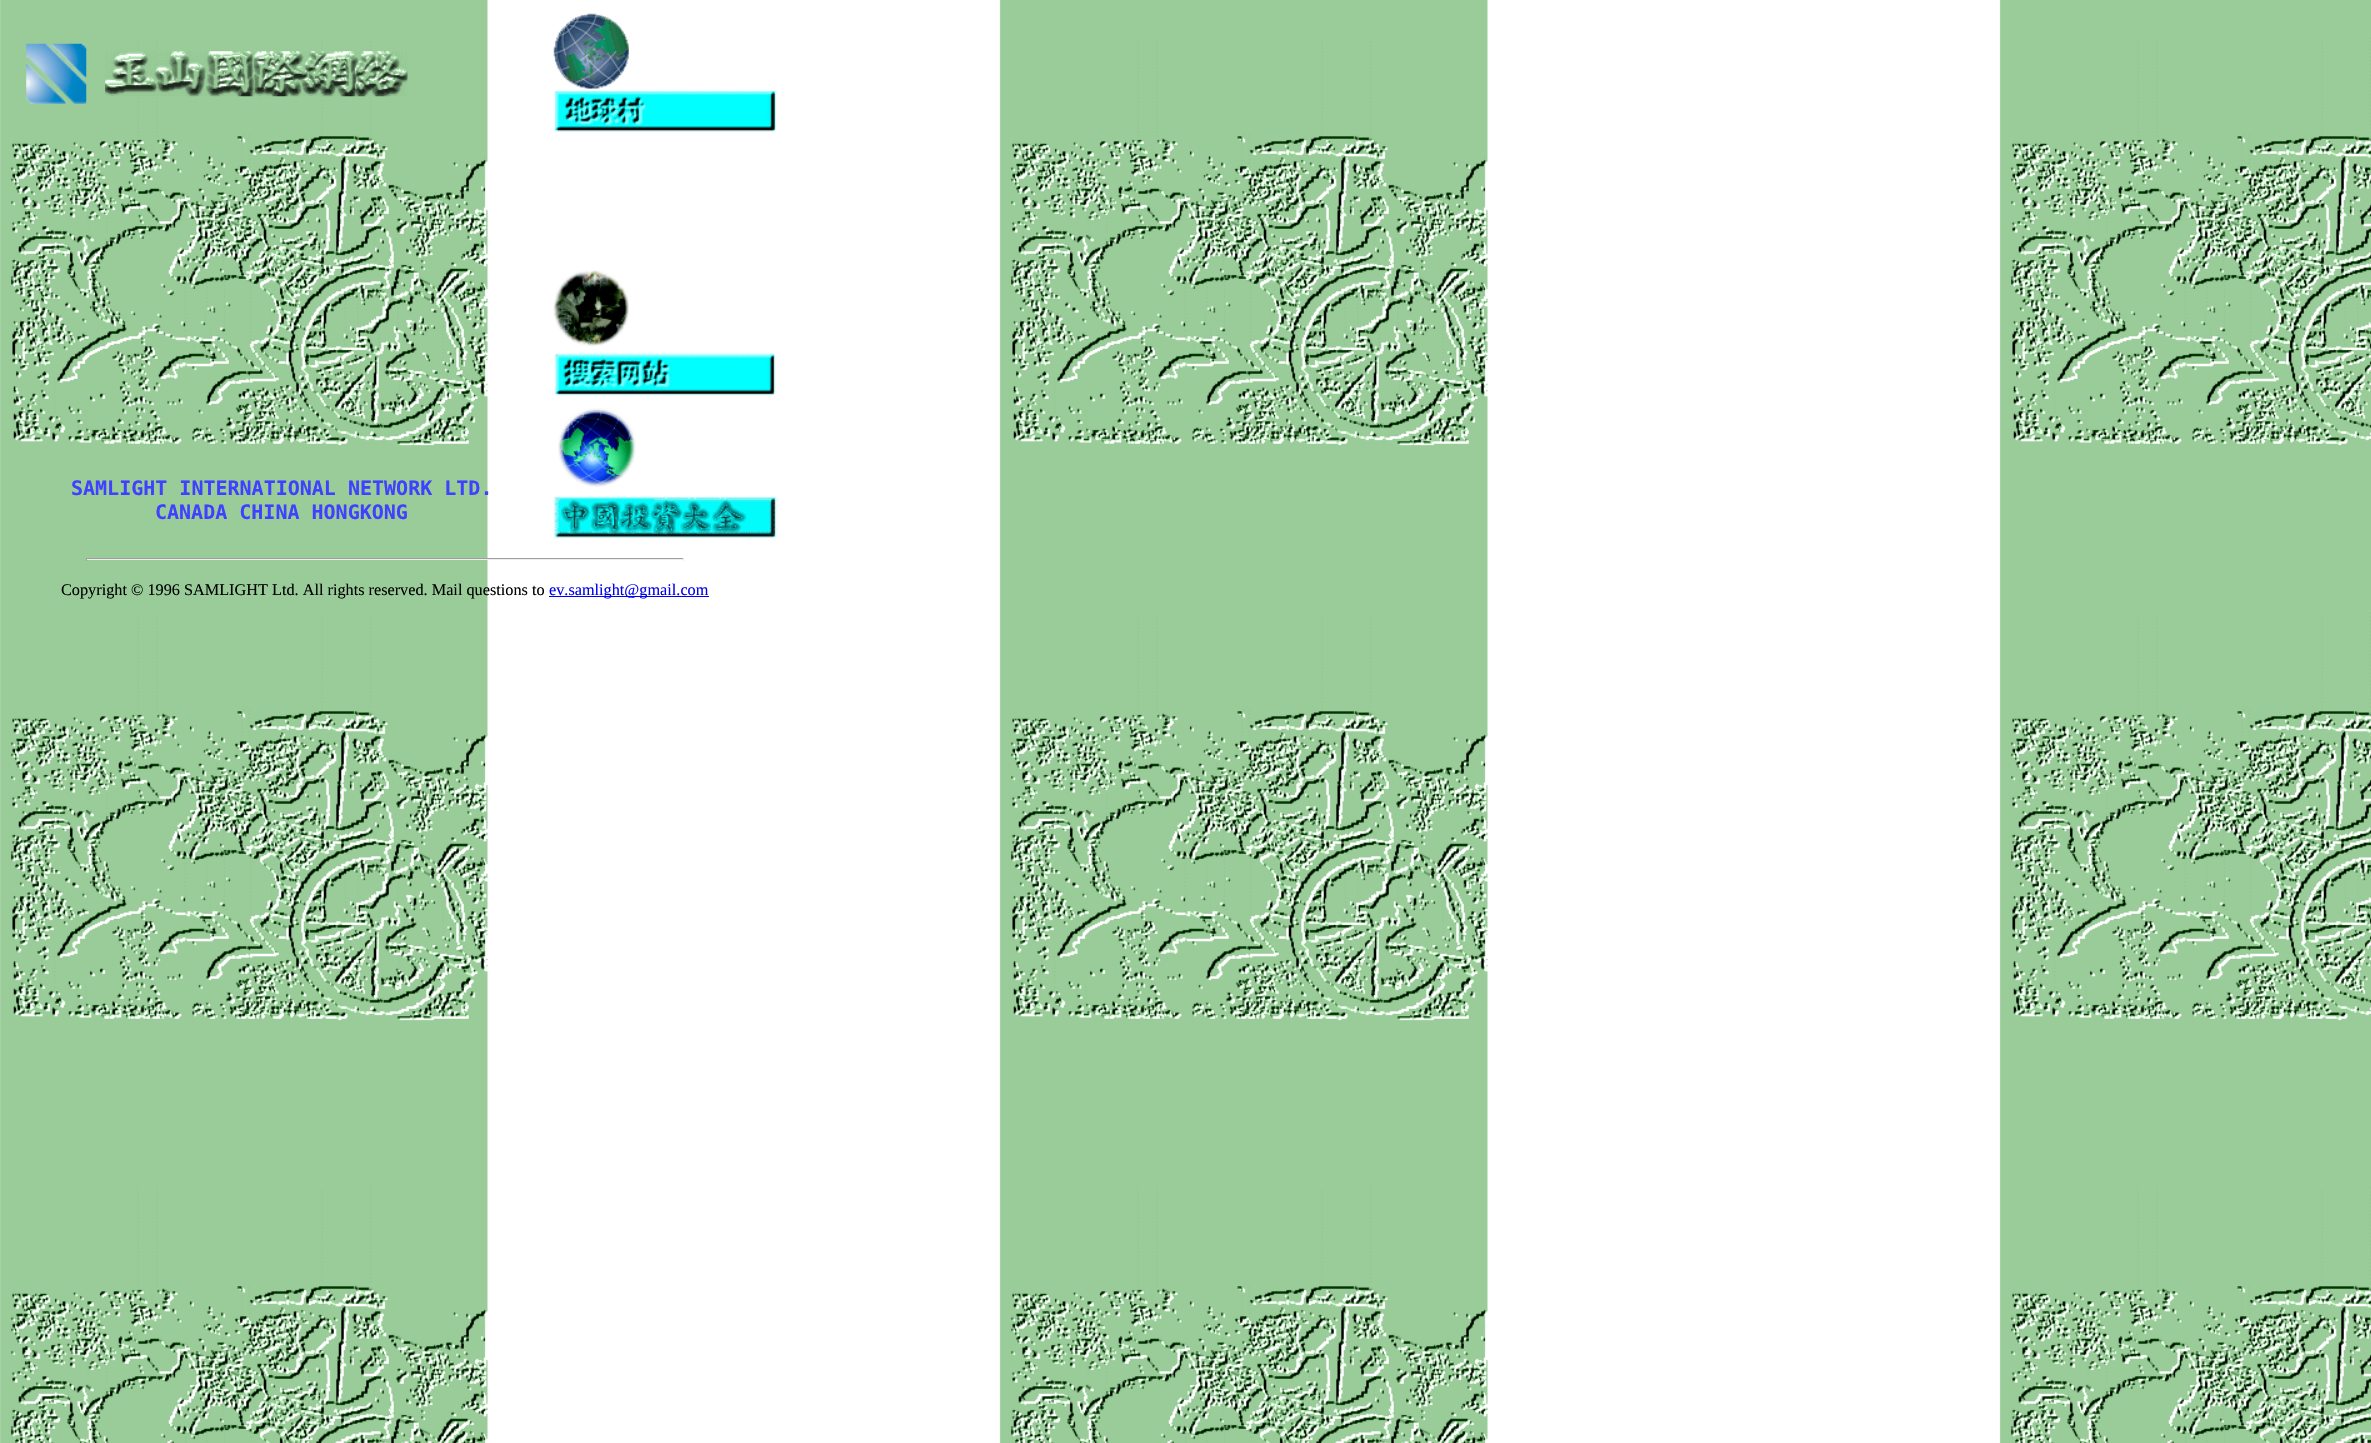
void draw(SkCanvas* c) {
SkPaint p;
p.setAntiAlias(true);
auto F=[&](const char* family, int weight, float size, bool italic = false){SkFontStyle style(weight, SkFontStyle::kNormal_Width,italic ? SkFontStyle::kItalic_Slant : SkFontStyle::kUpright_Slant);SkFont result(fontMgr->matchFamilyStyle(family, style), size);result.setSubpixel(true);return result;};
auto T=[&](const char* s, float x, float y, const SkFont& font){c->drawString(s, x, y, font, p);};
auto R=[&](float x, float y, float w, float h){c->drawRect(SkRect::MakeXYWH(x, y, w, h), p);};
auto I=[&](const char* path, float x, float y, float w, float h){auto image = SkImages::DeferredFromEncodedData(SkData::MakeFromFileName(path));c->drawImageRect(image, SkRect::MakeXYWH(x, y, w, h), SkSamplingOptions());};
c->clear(0xffffffff);
I("1.png",0,0,2371,1443);
I("2.png",26,43,61,61);
I("3.png",105,51,303,46);
I("4.png",553,13,76,76);
I("5.png",554,88,222,44);
I("6.png",553,270,76,77);
I("7.png",554,352,222,44);
auto f1 = F("DejaVu Sans Mono",700,20);
p.setColor(0xff4040ff);
T("SAMLIGHT INTERNATIONAL NETWORK LTD.",71,495,f1);
T("CANADA CHINA HONGKONG",155,519,f1);
I("8.png",558,408,78,79);
I("9.png",553,496,225,43);
p.setColor(0xff9f9f9f);
R(86,558,598,1);
p.setColor(0xffeeeeee);
R(683,558,1,3);
R(86,559,598,1);
p.setColor(0xff9f9f9f);
R(86,558,1,3);
auto f2 = F("Liberation Serif",400,16.25);
p.setColor(0xff000000);
T("Copyright © 1996 SAMLIGHT Ltd. All rights reserved. Mail questions to",61,595,f2);
p.setColor(0xff0000ee);
R(549,596,160,1);
T("ev.samlight@gmail.com",549,595,f2);
}
